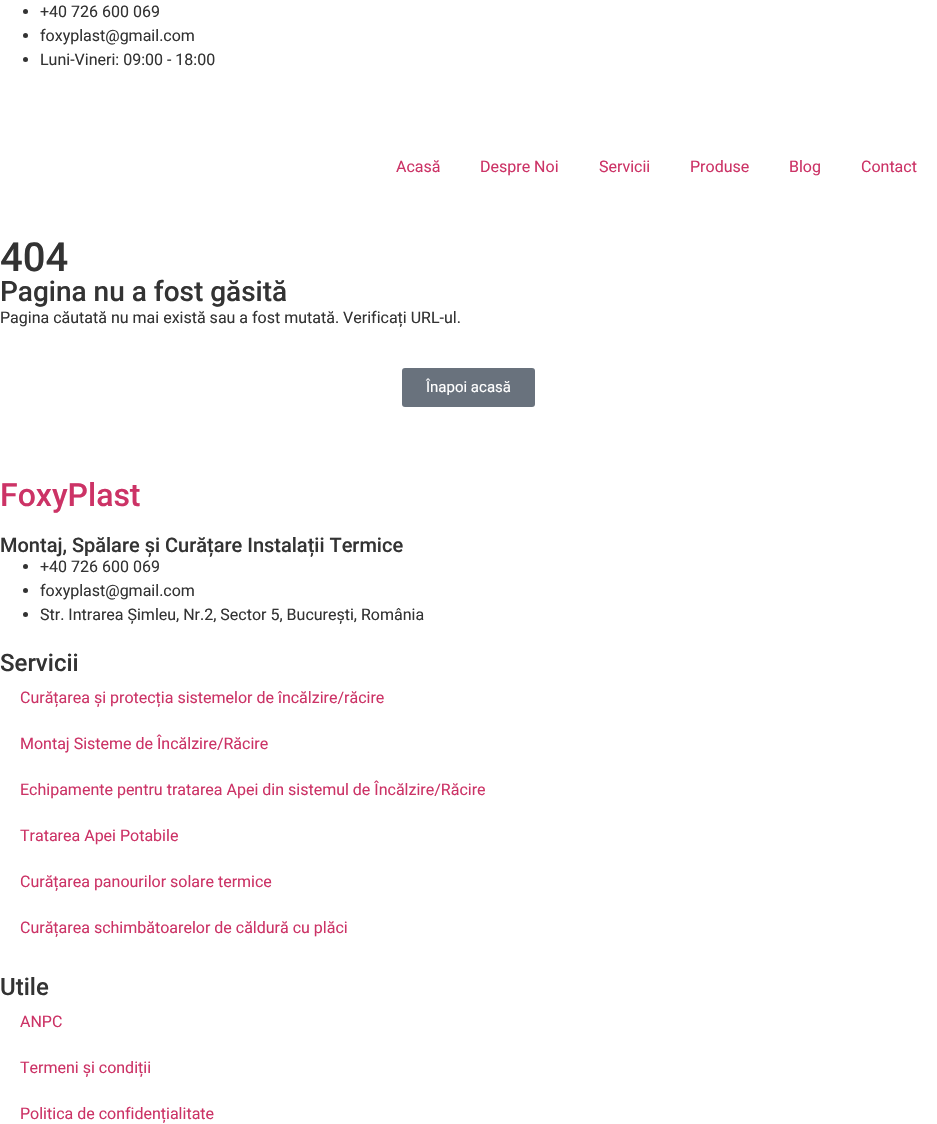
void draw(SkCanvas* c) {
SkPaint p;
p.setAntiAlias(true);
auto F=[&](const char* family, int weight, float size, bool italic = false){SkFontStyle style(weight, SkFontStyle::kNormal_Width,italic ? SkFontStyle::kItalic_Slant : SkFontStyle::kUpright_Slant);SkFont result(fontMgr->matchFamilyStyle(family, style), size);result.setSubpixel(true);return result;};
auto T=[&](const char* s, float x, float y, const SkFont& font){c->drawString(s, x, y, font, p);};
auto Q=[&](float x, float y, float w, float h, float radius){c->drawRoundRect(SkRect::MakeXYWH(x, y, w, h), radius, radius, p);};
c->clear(0xffffffff);
p.setColor(0xff333333);
c->drawCircle(25.5,11.5,2.5,p);
auto f1 = F("Roboto",400,16);
T("+40 726 600 069",40,17,f1);
c->drawCircle(25.5,35.5,2.5,p);
T("foxyplast@gmail.com",40,41,f1);
c->drawCircle(25.5,59.5,2.5,p);
T("Luni-Vineri: 09:00 - 18:00",40,65,f1);
p.setColor(0xffcc3366);
T("Acasă",396,172,f1);
T("Despre Noi",480,172,f1);
T("Servicii",599,172,f1);
T("Produse",690,172,f1);
T("Blog",789,172,f1);
T("Contact",861,172,f1);
auto f2 = F("Roboto",500,40);
p.setColor(0xff333333);
T("404",0,271,f2);
auto f3 = F("Roboto",500,28);
T("Pagina nu a fost găsită",0,301,f3);
T("Pagina căutată nu mai există sau a fost mutată. Verificați URL-ul.",0,323,f1);
p.setColor(0xff69727d);
Q(402,368,133,39,3);
auto f4 = F("Roboto",400,15);
p.setColor(0xffffffff);
T("Înapoi acasă",426,392,f4);
auto f5 = F("Roboto",500,32);
p.setColor(0xffcc3366);
T("FoxyPlast",0,506,f5);
auto f6 = F("Roboto",500,20);
p.setColor(0xff333333);
T("Montaj, Spălare și Curățare Instalații Termice",0,552,f6);
c->drawCircle(25.5,566.5,2.5,p);
T("+40 726 600 069",40,572,f1);
c->drawCircle(25.5,590.5,2.5,p);
T("foxyplast@gmail.com",40,596,f1);
c->drawCircle(25.5,614.5,2.5,p);
T("Str. Intrarea Șimleu, Nr.2, Sector 5, București, România",40,620,f1);
auto f7 = F("Roboto",500,24);
T("Servicii",0,671,f7);
p.setColor(0xffcc3366);
T("Curățarea și protecția sistemelor de încălzire/răcire",20,703,f1);
T("Montaj Sisteme de Încălzire/Răcire",20,749,f1);
T("Echipamente pentru tratarea Apei din sistemul de Încălzire/Răcire",20,795,f1);
T("Tratarea Apei Potabile",20,841,f1);
T("Curățarea panourilor solare termice",20,887,f1);
T("Curățarea schimbătoarelor de căldură cu plăci",20,933,f1);
p.setColor(0xff333333);
T("Utile",0,995,f7);
p.setColor(0xffcc3366);
T("ANPC",20,1027,f1);
T("Termeni și condiții",20,1073,f1);
T("Politica de confidențialitate",20,1119,f1);
}
